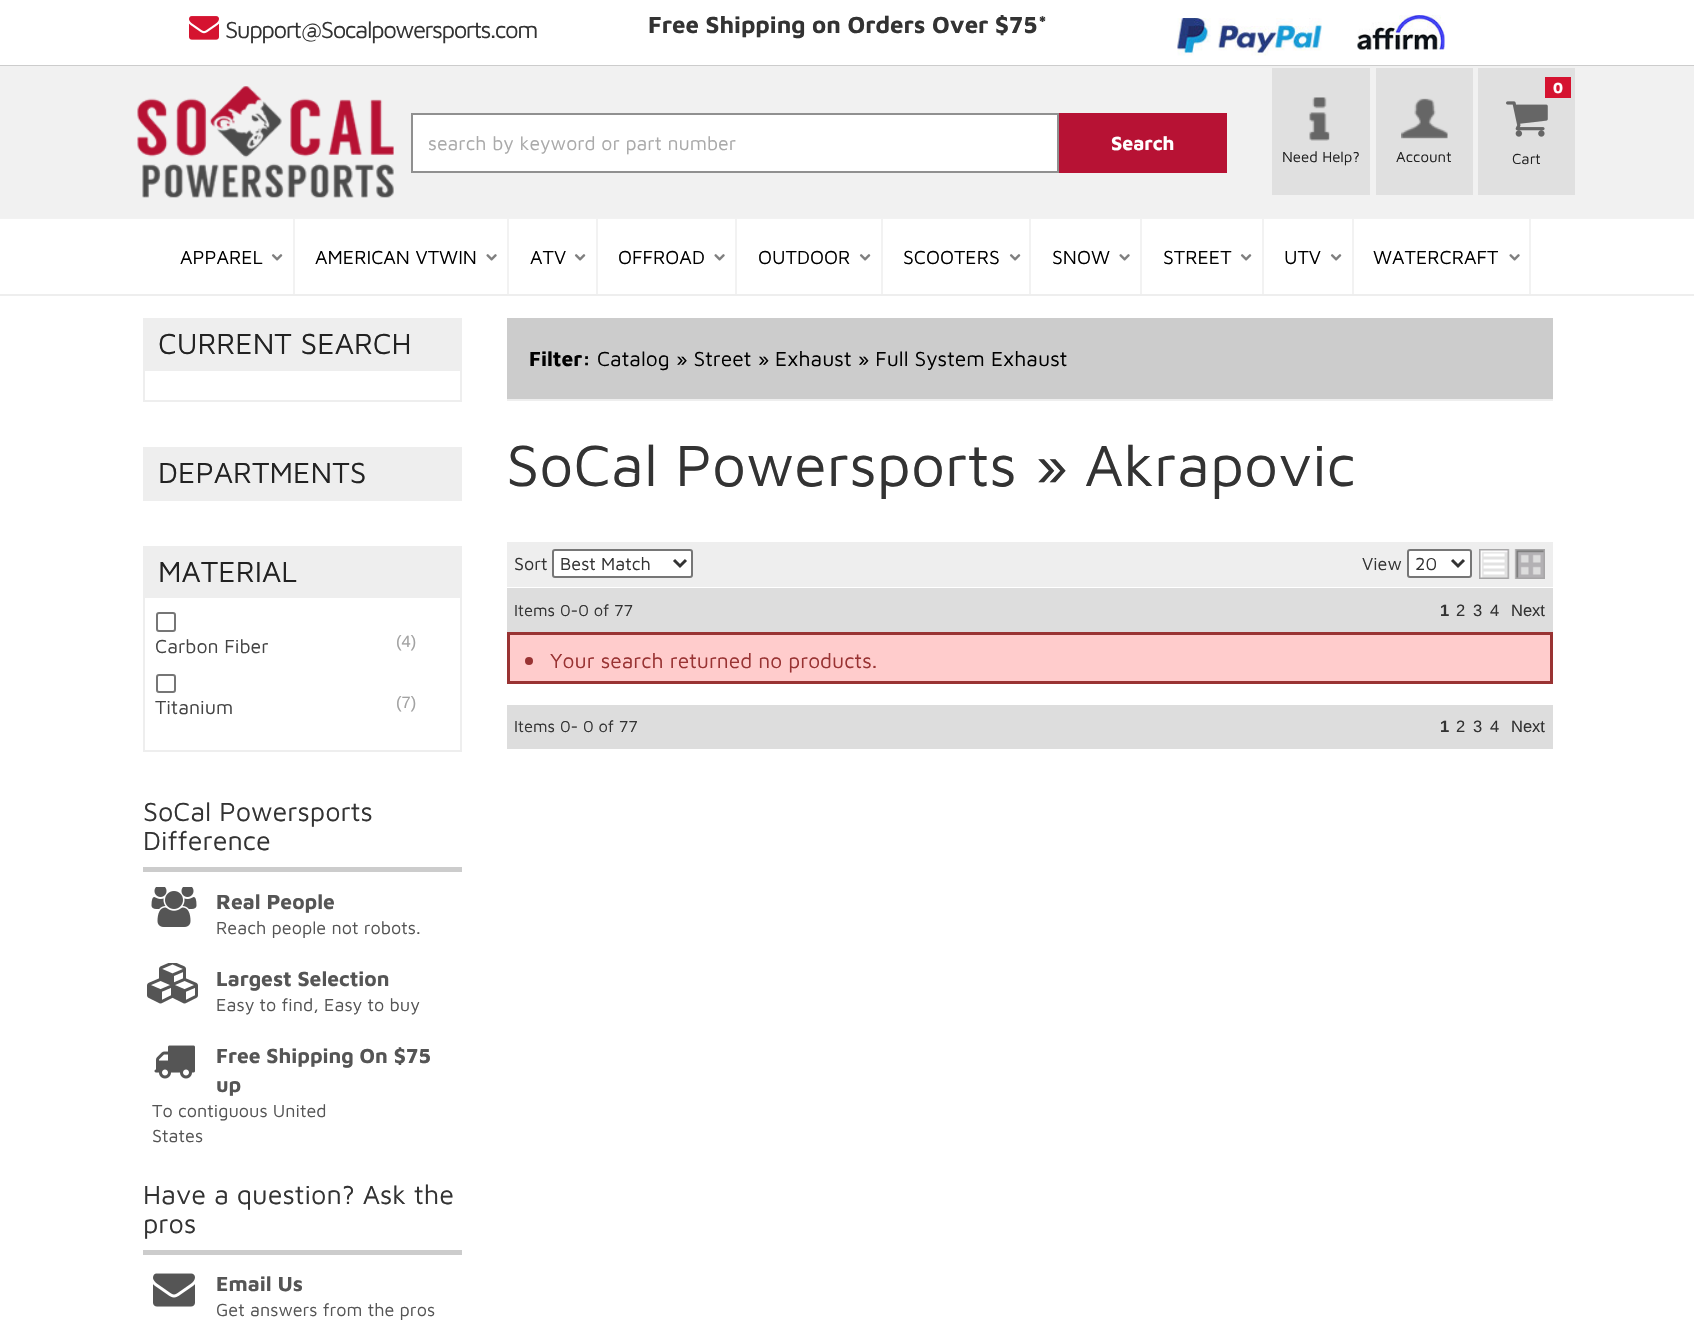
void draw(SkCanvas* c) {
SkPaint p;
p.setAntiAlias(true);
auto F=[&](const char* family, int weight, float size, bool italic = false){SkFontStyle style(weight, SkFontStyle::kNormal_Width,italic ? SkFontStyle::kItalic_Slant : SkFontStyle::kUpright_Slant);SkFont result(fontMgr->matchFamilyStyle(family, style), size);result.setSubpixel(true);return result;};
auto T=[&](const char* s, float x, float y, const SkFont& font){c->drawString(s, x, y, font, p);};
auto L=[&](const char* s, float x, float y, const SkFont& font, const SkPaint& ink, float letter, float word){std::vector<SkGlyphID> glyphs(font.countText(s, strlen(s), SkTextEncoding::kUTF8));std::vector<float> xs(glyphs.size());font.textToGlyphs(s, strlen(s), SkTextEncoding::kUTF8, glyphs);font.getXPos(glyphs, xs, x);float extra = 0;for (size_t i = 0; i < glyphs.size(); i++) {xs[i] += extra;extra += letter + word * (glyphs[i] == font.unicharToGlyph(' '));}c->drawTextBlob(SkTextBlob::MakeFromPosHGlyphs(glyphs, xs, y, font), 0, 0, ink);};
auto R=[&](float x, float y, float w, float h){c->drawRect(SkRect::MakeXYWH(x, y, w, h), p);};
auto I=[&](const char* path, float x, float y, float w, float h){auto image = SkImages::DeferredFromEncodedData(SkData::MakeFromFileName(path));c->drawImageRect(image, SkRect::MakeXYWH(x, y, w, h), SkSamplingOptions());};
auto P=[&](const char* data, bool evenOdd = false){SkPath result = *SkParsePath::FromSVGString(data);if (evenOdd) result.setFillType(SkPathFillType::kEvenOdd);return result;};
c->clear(0xffffffff);
p.setColor(0xffcccccc);
R(0,65,1694,1);
I("1.png",189,16,30,24);
auto f1 = F("Maven Pro",400,24);
p.setColor(0xff333333);
L("Support@Socalpowersports.com",225,38,f1,p,-1.5,0);
auto f2 = F("Maven Pro",700,24);
T("Free Shipping on Orders Over $75*",648,33,f2);
I("2.png",1177,18,145,38);
I("3.png",1357,15,88,35);
p.setColor(0xfff1f1f1);
R(0,66,1694,152);
p.setColor(0xfff2f2f2);
R(0,218,1694,1);
I("4.png",137,86,257,112);
p.setColor(0xffffffff);
c->drawRect(SkRect::MakeXYWH(412,114,646,58),p);
p.setStroke(true);
p.setStrokeWidth(2);
p.setColor(0xff909090);
c->drawRect(SkRect::MakeXYWH(412,114,646,58),p);
auto f3 = F("Maven Pro",400,19.5);
p.setStroke(false);
p.setColor(0xffaaaaaa);
T("search by keyword or part number",428,150,f3);
p.setColor(0xffb71234);
R(1059,113,168,60);
auto f4 = F("Maven Pro",700,19.5);
p.setColor(0xffffffff);
T("Search",1111,150,f4);
p.setColor(0xffe0e0e0);
R(1478,68,97,127);
p.setColor(0xffd51330);
R(1545,77,26,21);
auto f5 = F("Maven Pro",700,15);
p.setColor(0xffffffff);
T("0",1553,93,f5);
I("5.png",1506,101,42,36);
auto f6 = F("Maven Pro",400,15);
p.setColor(0xff222222);
T("Cart",1512,164,f6);
p.setColor(0xffe0e0e0);
R(1272,68,98,127);
I("6.png",1309,97,21,44);
p.setColor(0xff222222);
T("Need Help?",1282,162,f6);
p.setColor(0xffe0e0e0);
R(1376,68,97,127);
I("7.png",1401,98,47,41);
p.setColor(0xff222222);
T("Account",1396,162,f6);
p.setColor(0xffeeeeee);
R(0,294,1694,2);
p.setColor(0xfff2f2f2);
R(293,219,2,75);
p.setColor(0xff000000);
T("APPAREL",180,264,f3);
I("8.png",271,254,12,7);
p.setColor(0xfff2f2f2);
R(507,219,2,75);
p.setColor(0xff000000);
T("AMERICAN VTWIN",315,264,f3);
I("9.png",486,254,11,7);
p.setColor(0xfff2f2f2);
R(596,219,2,75);
p.setColor(0xff000000);
T("ATV",530,264,f3);
I("8.png",574,254,12,7);
p.setColor(0xfff2f2f2);
R(735,219,2,75);
p.setColor(0xff000000);
T("OFFROAD",618,264,f3);
I("9.png",714,254,11,7);
p.setColor(0xfff2f2f2);
R(881,219,2,75);
p.setColor(0xff000000);
T("OUTDOOR",758,264,f3);
I("8.png",859,254,12,7);
p.setColor(0xfff2f2f2);
R(1029,219,2,75);
p.setColor(0xff000000);
T("SCOOTERS",903,264,f3);
I("8.png",1009,254,12,7);
p.setColor(0xfff2f2f2);
R(1140,219,2,75);
p.setColor(0xff000000);
T("SNOW",1052,264,f3);
I("9.png",1119,254,11,7);
p.setColor(0xfff2f2f2);
R(1262,219,2,75);
p.setColor(0xff000000);
T("STREET",1163,264,f3);
I("8.png",1240,254,12,7);
p.setColor(0xfff2f2f2);
R(1352,219,2,75);
p.setColor(0xff000000);
T("UTV",1284,264,f3);
I("8.png",1330,254,12,7);
p.setColor(0xfff2f2f2);
R(1529,219,2,75);
p.setColor(0xff000000);
T("WATERCRAFT",1373,264,f3);
I("9.png",1509,254,11,7);
p.setColor(0xffeeeeee);
R(143,318,319,51);
auto f7 = F("Maven Pro",400,30);
p.setColor(0xff222222);
T("CURRENT SEARCH",158,354,f7);
p.setStroke(true);
p.setColor(0xffeeeeee);
c->drawRect(SkRect::MakeXYWH(144,370,317,31),p);
p.setStroke(false);
R(143,447,319,54);
p.setColor(0xff222222);
T("DEPARTMENTS",158,483,f7);
p.setColor(0xffeeeeee);
R(143,546,319,50);
p.setColor(0xff222222);
T("MATERIAL",158,582,f7);
p.setStroke(true);
p.setColor(0xffeeeeee);
c->drawRect(SkRect::MakeXYWH(144,597,317,154),p);
p.setColor(0xff767676);
c->drawRoundRect(SkRect::MakeXYWH(157,613,18,18),2,2,p);
p.setStroke(false);
p.setColor(0xff444444);
T("Carbon Fiber",155,653,f3);
auto f8 = F("Liberation Sans",400,16.5);
p.setColor(0xffa2a2a2);
T("(4)",396,647,f8);
p.setStroke(true);
p.setColor(0xff767676);
c->drawRoundRect(SkRect::MakeXYWH(157,675,18,17),2,2,p);
p.setStroke(false);
p.setColor(0xff444444);
T("Titanium",155,714,f3);
p.setColor(0xffa2a2a2);
T("(7)",396,708,f8);
p.setColor(0xffcccccc);
R(143,867,319,5);
auto f9 = F("Maven Pro",400,27);
p.setColor(0xff333333);
T("SoCal Powersports",143,821,f9);
T("Difference",143,850,f9);
I("10.png",151,887,46,40);
auto f10 = F("Maven Pro",700,21);
p.setColor(0xff555555);
T("Real People",216,909,f10);
auto f11 = F("Maven Pro",400,18);
T("Reach people not robots.",216,934,f11);
I("11.png",147,963,51,41);
T("Largest Selection",216,986,f10);
T("Easy to find, Easy to buy",216,1011,f11);
I("12.png",154,1045,41,34);
T("Free Shipping On $75",216,1063,f10);
T("up",216,1092,f10);
T("To contiguous United",152,1117,f11);
T("States",152,1142,f11);
p.setColor(0xffcccccc);
R(143,1250,319,5);
p.setColor(0xff333333);
T("Have a question? Ask the",143,1204,f9);
T("pros",143,1233,f9);
I("13.png",153,1273,42,34);
p.setColor(0xff555555);
T("Email Us",216,1291,f10);
T("Get answers from the pros",216,1316,f11);
p.setColor(0xffcccccc);
R(507,318,1046,81);
p.setColor(0xffeeeeee);
R(507,399,1046,2);
p.setColor(0xff000000);
T("Filter:",529,366,f10);
auto f12 = F("Maven Pro",400,21);
T("Catalog » Street » Exhaust » Full System Exhaust",597,366,f12);
auto f13 = F("Maven Pro",400,60);
p.setColor(0xff333333);
T("SoCal Powersports » Akrapovic",506,486,f13);
p.setColor(0xffeeeeee);
R(507,542,1046,45);
p.setColor(0xff333333);
T("Sort",514,570,f11);
p.setColor(0xffffffff);
c->drawRoundRect(SkRect::MakeXYWH(553,550,139,27),2,2,p);
p.setStroke(true);
p.setColor(0xff767676);
c->drawRoundRect(SkRect::MakeXYWH(553,550,139,27),2,2,p);
p.setStrokeWidth(3);
p.setColor(0xff333333);
c->drawPath(P("M674 560l6 6l6-6"),p);
p.setStroke(false);
T("Best Match",560,570,f11);
T("View",1362,570,f11);
p.setColor(0xffffffff);
c->drawRoundRect(SkRect::MakeXYWH(1408,550,63,27),2,2,p);
p.setStroke(true);
p.setStrokeWidth(2);
p.setColor(0xff767676);
c->drawRoundRect(SkRect::MakeXYWH(1408,550,63,27),2,2,p);
p.setStrokeWidth(3);
p.setColor(0xff333333);
c->drawPath(P("M1452 560l6 6l6-6"),p);
p.setStroke(false);
T("20",1415,570,f11);
I("14.png",1479,549,66,30);
p.setColor(0xffdddddd);
R(507,588,1046,44);
auto f14 = F("Maven Pro",400,16.5);
p.setColor(0xff333333);
T("Items 0-0 of 77",514,616,f14);
auto f15 = F("Liberation Sans",700,16.5);
T("1",1440,616,f15);
T("2",1456,616,f8);
T("3",1473,616,f8);
T("4",1490,616,f8);
T("Next",1511,616,f8);
p.setColor(0xffffcccc);
c->drawRect(SkRect::MakeXYWH(508.5,633.5,1043,49),p);
p.setStroke(true);
p.setColor(0xff993333);
c->drawRect(SkRect::MakeXYWH(508.5,633.5,1043,49),p);
p.setStroke(false);
c->drawCircle(529,661,4,p);
T("Your search returned no products.",550,668,f12);
p.setColor(0xffdddddd);
R(507,705,1046,44);
p.setColor(0xff333333);
T("Items 0- 0 of 77",514,732,f14);
T("1",1440,732,f15);
T("2",1456,732,f8);
T("3",1473,732,f8);
T("4",1490,732,f8);
T("Next",1511,732,f8);
}
